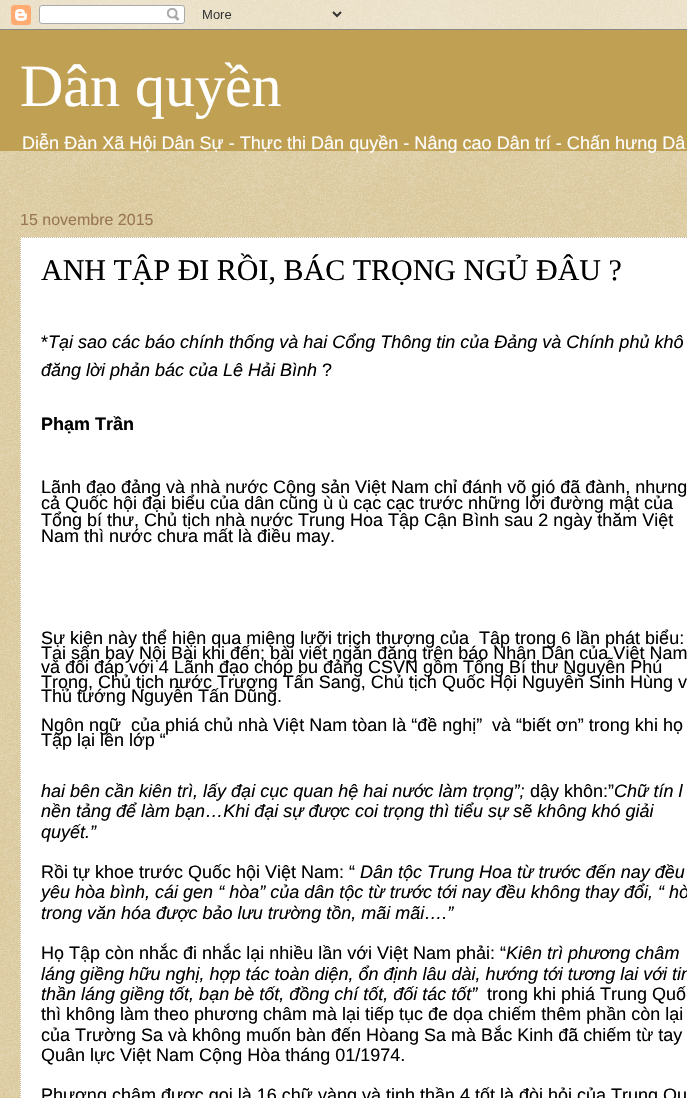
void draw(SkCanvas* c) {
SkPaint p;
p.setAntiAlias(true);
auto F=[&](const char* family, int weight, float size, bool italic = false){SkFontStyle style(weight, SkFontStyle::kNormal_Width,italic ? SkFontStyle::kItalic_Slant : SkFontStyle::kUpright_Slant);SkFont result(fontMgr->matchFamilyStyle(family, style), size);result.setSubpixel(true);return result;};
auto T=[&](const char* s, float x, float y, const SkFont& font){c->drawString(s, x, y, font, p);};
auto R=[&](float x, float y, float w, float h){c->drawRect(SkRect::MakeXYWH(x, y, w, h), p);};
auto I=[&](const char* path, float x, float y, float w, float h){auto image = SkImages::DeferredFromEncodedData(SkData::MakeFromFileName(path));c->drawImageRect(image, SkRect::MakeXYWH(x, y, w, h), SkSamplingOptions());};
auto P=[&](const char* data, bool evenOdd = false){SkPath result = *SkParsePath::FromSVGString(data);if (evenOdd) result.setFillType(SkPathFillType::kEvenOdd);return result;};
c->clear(0xffc0a154);
I("1.png",0,0,687,1098);
I("2.png",0,0,687,30);
p.setColor(0xffc0a154);
R(0,30,687,121);
auto f1 = F("Liberation Serif",400,60);
p.setColor(0xffffffff);
T("Dân quyền",20,106,f1);
auto f2 = F("Liberation Sans",400,18.05);
T("Diễn Đàn Xã Hội Dân Sự - Thực thi Dân quyền - Nâng cao Dân trí - Chấn hưng Dâ",22,149,f2);
auto f3 = F("Liberation Sans",400,16);
p.setColor(0xff997755);
T("15 novembre 2015",20,225,f3);
p.setColor(0xffffffff);
R(20,237,667,861);
p.setStroke(true);
p.setStrokeWidth(1);
p.setColor(0xffccbb99);
p.setPathEffect(SkDashPathEffect::Make({{1,1}}, 0));
c->drawPath(P("M20 237.5h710"),p);
p.setPathEffect(nullptr);
p.setPathEffect(SkDashPathEffect::Make({{1,1}}, 0));
c->drawPath(P("M20.5 237v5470"),p);
p.setPathEffect(nullptr);
auto f4 = F("Liberation Serif",400,30);
p.setStroke(false);
p.setColor(0xff000000);
T("ANH TẬP ĐI RỒI, BÁC TRỌNG NGỦ ĐÂU ?",41,280,f4);
auto f5 = F("Liberation Sans",400,18);
T("*",41,348,f5);
auto f6 = F("Liberation Sans",400,18,true);
T("Tại sao các báo chính thống và hai Cổng Thông tin của Đảng và Chính phủ khô",48,348,f6);
T("đăng lời phản bác của Lê Hải Bình",41,376,f6);
T("?",322,376,f5);
auto f7 = F("Liberation Sans",700,18);
T("Phạm Trần",41,430,f7);
T("Lãnh đạo đảng và nhà nước Cộng sản Việt Nam chỉ đánh võ gió đã đành, nhưng",41,493,f5);
T("cả Quốc hội đại biểu của dân cũng ù ù cạc cạc trước những lời đường mật của",41,509,f5);
T("Tổng bí thư, Chủ tịch nhà nước Trung Hoa Tập Cận Bình sau 2 ngày thăm Việt",41,526,f5);
T("Nam thì nước chưa mất là điều may.",41,542,f5);
T("Sự kiện này thể hiện qua miệng lưỡi trịch thượng của",41,644,f5);
T("Tập trong 6 lần phát biểu:",479,644,f5);
T("Tại sân bay Nội Bài khi đến; bài viết ngắn đăng trên báo Nhân Dân của Việt Nam",41,659,f5);
T("và đối đáp với 4 Lãnh đạo chóp bu đảng CSVN gồm Tổng Bí thư Nguyễn Phú",41,673,f5);
T("Trọng, Chủ tịch nước Trương Tấn Sang, Chủ tịch Quốc Hội Nguyễn Sinh Hùng v",41,688,f5);
T("Thủ tướng Nguyễn Tấn Dũng.",41,702,f5);
T("Ngôn ngữ",41,731,f5);
T("của phiá chủ nhà Việt Nam tòan là “đề nghị”",131,731,f5);
T("và “biết ơn” trong khi họ",492,731,f5);
T("Tập lại lên lớp “",41,746,f5);
T("hai bên cần kiên trì, lấy đại cục quan hệ hai nước làm trọng”;",41,797,f6);
T("dậy khôn:”",530,797,f5);
T("Chữ tín l",614,797,f6);
T("nền tảng để làm bạn…Khi đại sự được coi trọng thì tiểu sự sẽ không khó giải",41,817,f6);
T("quyết.”",41,838,f6);
T("Rồi tự khoe trước Quốc hội Việt Nam: “",41,878,f5);
T("Dân tộc Trung Hoa từ trước đến nay đều",360,878,f6);
T("yêu hòa bình, cái gen “ hòa” của dân tộc từ trước tới nay đều không thay đổi, “ hò",41,898,f6);
T("trong văn hóa được bảo lưu trường tồn, mãi mãi….”",41,919,f6);
T("Họ Tập còn nhắc đi nhắc lại nhiều lần với Việt Nam phải: “",41,959,f5);
T("Kiên trì phương châm",506,959,f6);
T("láng giềng hữu nghị, hợp tác toàn diện, ổn định lâu dài, hướng tới tương lai với tin",41,980,f6);
T("thần láng giềng tốt, bạn bè tốt, đồng chí tốt, đối tác tốt”",41,1000,f6);
T("trong khi phiá Trung Quố",487,1000,f5);
T("thì không làm theo phương châm mà lại tiếp tục đe dọa chiếm thêm phần còn lại",41,1020,f5);
T("của Trường Sa và không muốn bàn đến Hòang Sa mà Bắc Kinh đã chiếm từ tay",41,1041,f5);
T("Quân lực Việt Nam Cộng Hòa tháng 01/1974.",41,1061,f5);
T("Phương châm được gọi là 16 chữ vàng và tinh thần 4 tốt là đòi hỏi của Trung Qu",41,1101,f5);
}
